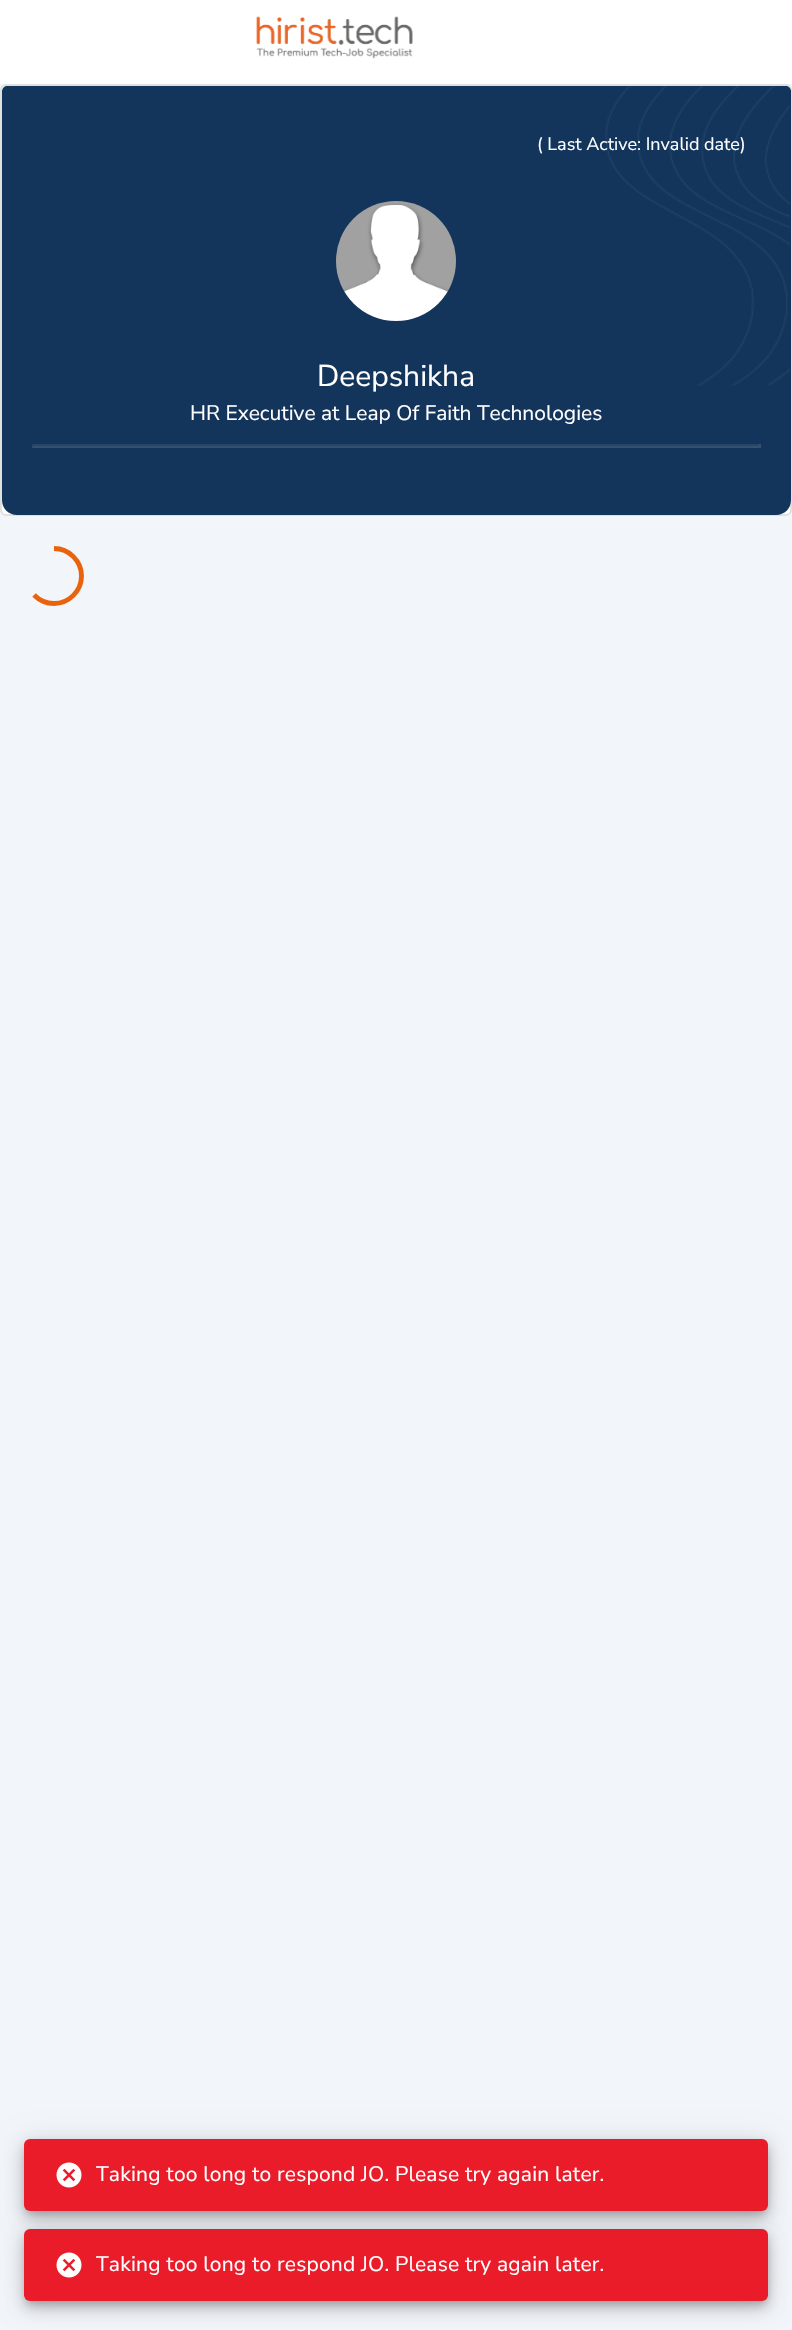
void draw(SkCanvas* c) {
SkPaint p;
p.setAntiAlias(true);
auto F=[&](const char* family, int weight, float size, bool italic = false){SkFontStyle style(weight, SkFontStyle::kNormal_Width,italic ? SkFontStyle::kItalic_Slant : SkFontStyle::kUpright_Slant);SkFont result(fontMgr->matchFamilyStyle(family, style), size);result.setSubpixel(true);return result;};
auto T=[&](const char* s, float x, float y, const SkFont& font){c->drawString(s, x, y, font, p);};
auto L=[&](const char* s, float x, float y, const SkFont& font, const SkPaint& ink, float letter, float word){std::vector<SkGlyphID> glyphs(font.countText(s, strlen(s), SkTextEncoding::kUTF8));std::vector<float> xs(glyphs.size());font.textToGlyphs(s, strlen(s), SkTextEncoding::kUTF8, glyphs);font.getXPos(glyphs, xs, x);float extra = 0;for (size_t i = 0; i < glyphs.size(); i++) {xs[i] += extra;extra += letter + word * (glyphs[i] == font.unicharToGlyph(' '));}c->drawTextBlob(SkTextBlob::MakeFromPosHGlyphs(glyphs, xs, y, font), 0, 0, ink);};
auto R=[&](float x, float y, float w, float h){c->drawRect(SkRect::MakeXYWH(x, y, w, h), p);};
auto Q=[&](float x, float y, float w, float h, float radius){c->drawRoundRect(SkRect::MakeXYWH(x, y, w, h), radius, radius, p);};
auto I=[&](const char* path, float x, float y, float w, float h){auto image = SkImages::DeferredFromEncodedData(SkData::MakeFromFileName(path));c->drawImageRect(image, SkRect::MakeXYWH(x, y, w, h), SkSamplingOptions());};
auto P=[&](const char* data, bool evenOdd = false){SkPath result = *SkParsePath::FromSVGString(data);if (evenOdd) result.setFillType(SkPathFillType::kEvenOdd);return result;};
c->clear(0xfff2f5fa);
p.setColor(0xffffffff);
R(0,0,792,84);
I("1.png",256,16,157,43);
Q(0,84,792,432,6);
p.setStroke(true);
p.setStrokeWidth(2);
p.setColor(0x1f000000);
c->drawRoundRect(SkRect::MakeXYWH(1,85,790,430),5,5,p);
c->save();
c->clipPath(P("M7 86h779c3 0 5 2 5 5v419c0 3-2 5-5 5h-779c-3 0-5-2-5-5v-419c0-3 2-5 5-5z"),true);
p.setStroke(false);
p.setColor(0xff13355c);
c->drawPath(P("M7 86h779c3 0 5 2 5 5v409c0 8.5-6.5 15-15 15h-759c-8.5 0-15-6.5-15-15v-409c0-3 2-5 5-5z"),p);
c->restore();
I("2.png",605,86,185,300);
auto f1 = F("Nunito Sans",400,18);
p.setColor(0xffffffff);
T("( Last Active: Invalid date)",537,150,f1);
auto f2 = F("Nunito Sans",400,30);
T("Deepshikha",317,386,f2);
auto f3 = F("Nunito Sans",400,21);
T("HR Executive at Leap Of Faith Technologies",190,420,f3);
p.setColor(0xff284566);
R(32,444,729,2);
p.setColor(0xff345172);
R(759,444,2,3);
R(32,446,729,2);
p.setColor(0xff284566);
R(32,444,2,3);
I("3.png",336,201,120,120);
p.setStroke(true);
p.setStrokeWidth(4.9);
p.setColor(0xffe9630c);
c->drawPath(P("M54 548.5c15 0 27.5 12.5 27.5 27.5c0 15-12.5 27.5-27.5 27.5c-8 0-15-3.5-20-8.5"),p);
p.setStroke(false);
p.setColor(0x1f000000);
p.setMaskFilter(SkMaskFilter::MakeBlur(kNormal_SkBlurStyle, 13.5));
c->drawRoundRect(SkRect::MakeXYWH(24,2231,744,72),6,6,p);
p.setMaskFilter(nullptr);
p.setColor(0x24000000);
p.setMaskFilter(SkMaskFilter::MakeBlur(kNormal_SkBlurStyle, 7.5));
c->drawRoundRect(SkRect::MakeXYWH(24,2238,744,72),6,6,p);
p.setMaskFilter(nullptr);
p.setColor(0x33000000);
p.setMaskFilter(SkMaskFilter::MakeBlur(kNormal_SkBlurStyle, 4));
c->drawRoundRect(SkRect::MakeXYWH(26,2235,741,69),5,5,p);
p.setMaskFilter(nullptr);
p.setColor(0xffeb1c2a);
Q(24,2229,744,72,6);
I("4.png",56,2252,26,26);
p.setColor(0x1f000000);
p.setMaskFilter(SkMaskFilter::MakeBlur(kNormal_SkBlurStyle, 13.5));
c->drawRoundRect(SkRect::MakeXYWH(24,2141,744,72),6,6,p);
p.setMaskFilter(nullptr);
p.setColor(0x24000000);
p.setMaskFilter(SkMaskFilter::MakeBlur(kNormal_SkBlurStyle, 7.5));
c->drawRoundRect(SkRect::MakeXYWH(24,2148,744,72),6,6,p);
p.setMaskFilter(nullptr);
p.setColor(0x33000000);
p.setMaskFilter(SkMaskFilter::MakeBlur(kNormal_SkBlurStyle, 4));
c->drawRoundRect(SkRect::MakeXYWH(26,2145,741,69),5,5,p);
p.setMaskFilter(nullptr);
p.setColor(0xffeb1c2a);
Q(24,2139,744,72,6);
I("4.png",56,2162,26,26);
p.setColor(0xffffffff);
L("Taking too long to respond JO. Please try again later.",96,2181,f3,p,.22,0);
L("Taking too long to respond JO. Please try again later.",96,2271,f3,p,.22,0);
}
